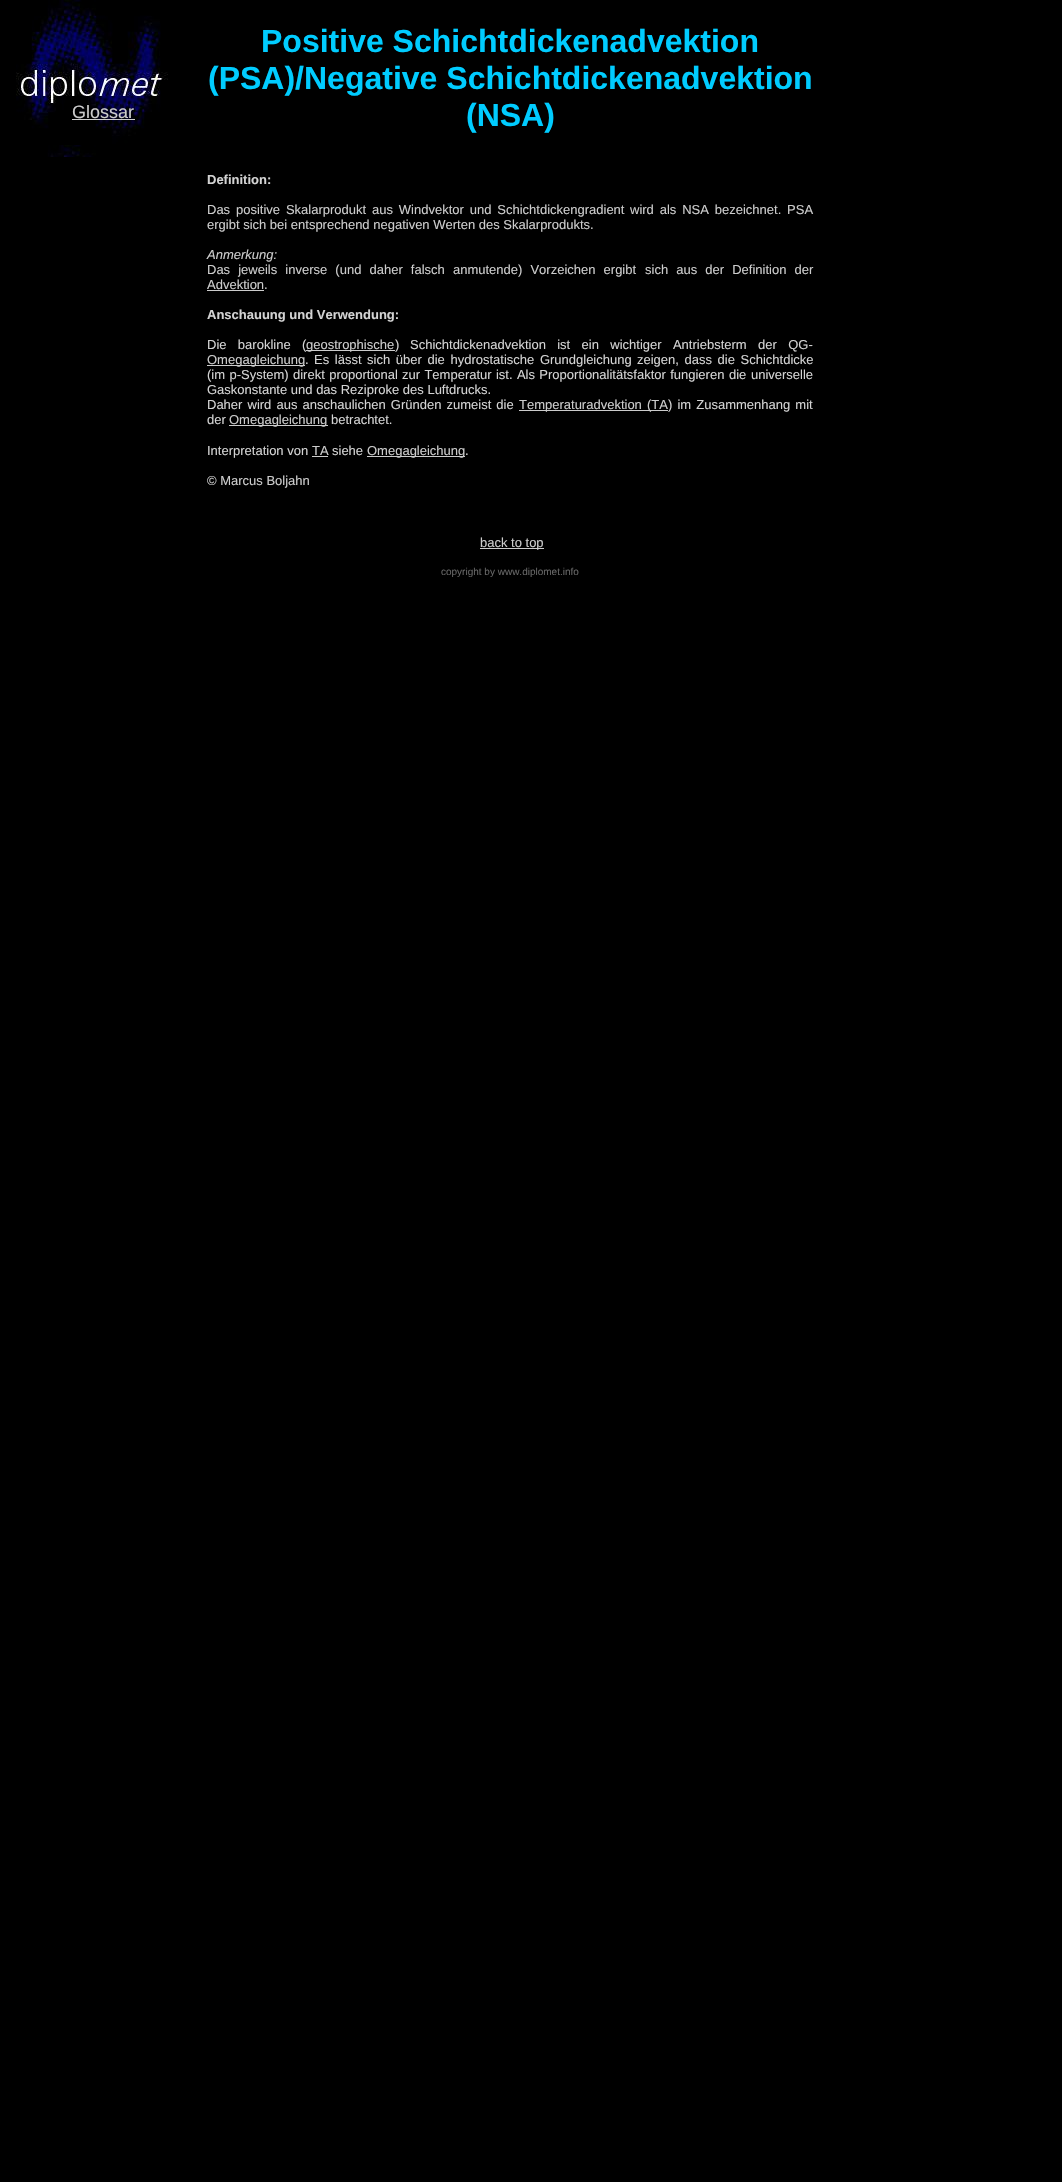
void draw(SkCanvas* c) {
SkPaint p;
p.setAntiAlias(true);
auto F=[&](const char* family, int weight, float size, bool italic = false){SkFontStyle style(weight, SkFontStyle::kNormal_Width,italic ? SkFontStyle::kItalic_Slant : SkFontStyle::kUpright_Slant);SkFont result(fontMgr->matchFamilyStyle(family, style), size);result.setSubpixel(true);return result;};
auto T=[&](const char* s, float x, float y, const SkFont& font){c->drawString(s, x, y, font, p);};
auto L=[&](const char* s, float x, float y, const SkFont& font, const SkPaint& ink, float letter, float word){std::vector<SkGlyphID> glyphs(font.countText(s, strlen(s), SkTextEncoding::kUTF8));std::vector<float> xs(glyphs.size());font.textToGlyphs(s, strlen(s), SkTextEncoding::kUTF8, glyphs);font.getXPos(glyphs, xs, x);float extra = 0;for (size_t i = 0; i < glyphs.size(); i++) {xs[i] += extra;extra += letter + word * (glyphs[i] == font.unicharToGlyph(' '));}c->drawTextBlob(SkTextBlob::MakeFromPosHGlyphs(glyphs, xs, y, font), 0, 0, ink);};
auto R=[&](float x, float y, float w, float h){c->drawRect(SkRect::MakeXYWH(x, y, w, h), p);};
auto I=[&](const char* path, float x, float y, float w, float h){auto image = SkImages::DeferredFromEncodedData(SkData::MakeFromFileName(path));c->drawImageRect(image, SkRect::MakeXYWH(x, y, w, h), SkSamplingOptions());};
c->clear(0xff000000);
I("1.png",16,0,152,157);
auto f1 = F("Liberation Sans",400,18);
p.setColor(0xffcccccc);
T("Glossar",72,118,f1);
R(72,119,63,1);
auto f2 = F("Liberation Sans",700,32);
p.setColor(0xff00ccff);
T("Positive Schichtdickenadvektion",261,52,f2);
T("(PSA)/Negative Schichtdickenadvektion",208,89,f2);
T("(NSA)",466,126,f2);
auto f3 = F("Liberation Sans",700,13);
p.setColor(0xffd3d3d3);
T("Definition:",207,184,f3);
auto f4 = F("Liberation Sans",400,13);
p.setColor(0xffcccccc);
T("Das",207,214,f4);
L("positive Skalarprodukt aus Windvektor und Schichtdickengradient",236,214,f4,p,0,2.25);
L("wird als NSA bezeichnet. PSA",630,214,f4,p,0,2.25);
T("ergibt sich bei entsprechend negativen Werten des Skalarprodukts.",207,229,f4);
auto f5 = F("Liberation Sans",400,13,true);
T("Anmerkung:",207,259,f5);
L("Das jeweils inverse (und daher falsch anmutende) Vorzeichen ergibt",207,274,f4,p,0,4.5);
L("sich aus der Definition der",645,274,f4,p,0,4.5);
T("Advektion.",207,289,f4);
R(207,290,57,1);
p.setColor(0xffd3d3d3);
T("Anschauung und Verwendung:",207,319,f3);
L("Die barokline (",207,349,f4,p,0,7.75);
p.setColor(0xffcccccc);
R(306,350,89,1);
T("geostrophische",306,349,f4);
p.setColor(0xffd3d3d3);
T(")",395,349,f4);
L("Schichtdickenadvektion ist ein wichtiger Antriebsterm der QG-",410,349,f4,p,0,7.75);
p.setColor(0xffcccccc);
R(207,365,98,1);
T("Omegagleichung",207,364,f4);
p.setColor(0xffd3d3d3);
T(".",305,364,f4);
L("Es lässt sich über die hydrostatische Grundgleichung",314,364,f4,p,0,2);
L("zeigen, dass die Schichtdicke",637,364,f4,p,0,2);
L("(im p-System) direkt proportional",207,379,f4,p,0,.75);
L("zur Temperatur ist. Als Proportionalitätsfaktor fungieren",402,379,f4,p,0,.75);
L("die universelle",729,379,f4,p,0,1);
T("Gaskonstante und das Reziproke des Luftdrucks.",207,394,f4);
L("Daher wird aus anschaulichen Gründen zumeist die",207,409,f4,p,0,1.5);
p.setColor(0xffcccccc);
R(519,410,149,1);
T("Temperaturadvektion",519,409,f4);
T("(TA",647,409,f4);
p.setColor(0xffd3d3d3);
L(") im Zusammenhang mit",668,409,f4,p,0,1.5);
T("der",207,424,f4);
p.setColor(0xffcccccc);
R(229,425,99,1);
T("Omegagleichung",229,424,f4);
p.setColor(0xffd3d3d3);
T("betrachtet.",331,424,f4);
T("Interpretation von",207,455,f4);
p.setColor(0xffcccccc);
T("TA",312,455,f4);
R(312,456,16,1);
p.setColor(0xffd3d3d3);
T("siehe",332,455,f4);
p.setColor(0xffcccccc);
R(367,456,98,1);
T("Omegagleichung",367,455,f4);
p.setColor(0xffd3d3d3);
T(".",465,455,f4);
p.setColor(0xffcccccc);
T("© Marcus Boljahn",207,485,f4);
R(480,548,64,1);
T("back to top",480,547,f4);
auto f6 = F("Liberation Sans",400,10);
p.setColor(0xff666666);
T("copyright by www.diplomet.info",441,575,f6);
}
